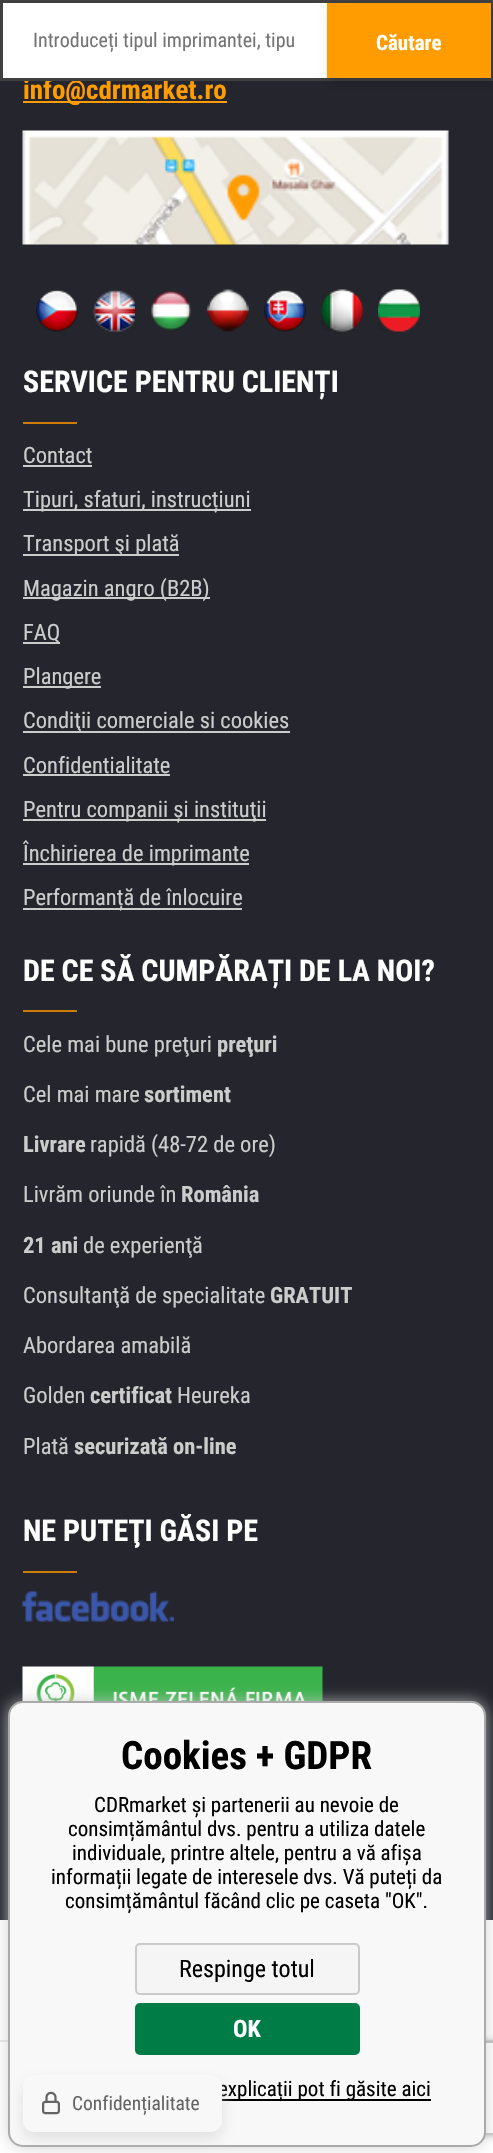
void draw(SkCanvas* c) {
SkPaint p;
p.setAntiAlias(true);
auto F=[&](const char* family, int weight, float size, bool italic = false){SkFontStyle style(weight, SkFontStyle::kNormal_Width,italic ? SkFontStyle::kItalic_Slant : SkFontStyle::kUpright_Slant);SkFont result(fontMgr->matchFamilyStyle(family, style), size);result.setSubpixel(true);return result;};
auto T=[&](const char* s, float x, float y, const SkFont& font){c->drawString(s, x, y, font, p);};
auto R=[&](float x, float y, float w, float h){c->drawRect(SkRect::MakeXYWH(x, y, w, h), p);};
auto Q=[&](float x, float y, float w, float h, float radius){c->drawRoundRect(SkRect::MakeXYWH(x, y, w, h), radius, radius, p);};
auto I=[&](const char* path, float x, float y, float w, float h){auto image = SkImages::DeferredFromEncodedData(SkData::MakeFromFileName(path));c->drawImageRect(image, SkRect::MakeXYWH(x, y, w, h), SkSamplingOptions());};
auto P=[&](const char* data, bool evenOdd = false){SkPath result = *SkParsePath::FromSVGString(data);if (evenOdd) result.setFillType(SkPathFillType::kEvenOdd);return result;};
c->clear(0xffffffff);
p.setColor(0xff25262d);
R(0,81,493,1839);
p.setColor(0xffff9c01);
R(23,101,204,2);
auto f1 = F("Roboto Condensed",700,27);
T("info@cdrmarket.ro",23,99,f1);
p.setStroke(true);
p.setStrokeWidth(3);
p.setColor(0xff404040);
c->drawRect(SkRect::MakeXYWH(1.5,1.5,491,78),p);
auto f2 = F("Roboto Condensed",400,20);
p.setStroke(false);
p.setColor(0xff757575);
T("Introduceți tipul imprimantei, tipu",33,47,f2);
p.setColor(0x29000000);
p.setMaskFilter(SkMaskFilter::MakeBlur(kNormal_SkBlurStyle, 4.5));
c->drawRect(SkRect::MakeXYWH(330,9,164,75),p);
p.setMaskFilter(nullptr);
p.setColor(0xffff9c01);
R(327,3,164,75);
auto f3 = F("Roboto Condensed",700,21);
p.setColor(0xffffffff);
T("Căutare",376,50,f3);
I("1.png",22,130,427,115);
I("2.png",36,290,42,42);
I("3.png",93,289,42,43);
I("4.png",151,290,40,41);
I("5.png",207,289,42,43);
I("6.png",264,290,42,42);
I("7.png",321,289,42,43);
I("8.png",378,289,42,43);
auto f4 = F("Roboto Condensed",700,30);
T("SERVICE PENTRU CLIENȚI",23,392,f4);
p.setColor(0xffcd7d00);
R(23,422,54,2);
auto f5 = F("Roboto Condensed",400,22.5);
p.setColor(0xffcccccc);
T("Contact",23,463,f5);
R(23,465,69,2);
R(23,509,228,2);
T("Tipuri, sfaturi, instrucțiuni",23,507,f5);
R(23,554,156,2);
T("Transport şi plată",23,551,f5);
R(23,597,187,2);
T("Magazin angro (B2B)",23,596,f5);
R(23,642,37,2);
T("FAQ",23,640,f5);
R(23,686,78,2);
T("Plangere",23,684,f5);
R(23,731,267,2);
T("Condiţii comerciale si cookies",23,728,f5);
T("Confidentialitate",23,773,f5);
R(23,774,147,2);
R(23,819,243,2);
T("Pentru companii și instituţii",23,817,f5);
R(23,863,226,2);
T("Închirierea de imprimante",23,861,f5);
R(23,908,219,2);
T("Performanță de înlocuire",23,905,f5);
p.setColor(0xffffffff);
T("DE CE SĂ CUMPĂRAȚI DE LA NOI?",23,981,f4);
p.setColor(0xffcd7d00);
R(23,1010,54,2);
p.setColor(0xffcccccc);
T("Cele mai bune preţuri",23,1052,f5);
auto f6 = F("Roboto Condensed",700,22.5);
T("preţuri",217,1052,f6);
T("Cel mai mare",23,1102,f5);
T("sortiment",144,1102,f6);
T("Livrare",23,1152,f6);
T("rapidă (48-72 de ore)",90,1152,f5);
T("Livrăm oriunde în",23,1202,f5);
T("România",181,1202,f6);
T("21 ani",23,1253,f6);
T("de experienţă",83,1253,f5);
T("Consultanţă de specialitate",23,1303,f5);
T("GRATUIT",270,1303,f6);
T("Abordarea amabilă",23,1353,f5);
T("Golden",23,1403,f5);
T("certificat",90,1403,f6);
T("Heureka",177,1403,f5);
T("Plată",23,1454,f5);
T("securizată on-line",74,1454,f6);
p.setColor(0xffffffff);
T("NE PUTEŢI GĂSI PE",23,1541,f4);
p.setColor(0xffcd7d00);
R(23,1571,54,2);
I("9.png",22,1591,152,31);
I("10.png",22,1666,301,36);
p.setColor(0xffe6e6e6);
R(0,2040,493,2);
p.setColor(0xccc8c8c8);
p.setMaskFilter(SkMaskFilter::MakeBlur(kNormal_SkBlurStyle, 7.5));
c->drawRoundRect(SkRect::MakeXYWH(8,1701,478,446),15,15,p);
p.setMaskFilter(nullptr);
c->save();
c->clipPath(P("M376 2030h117v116h-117zm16 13h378c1.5 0 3 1.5 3 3v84c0 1.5-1.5 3-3 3h-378c-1.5 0-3-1.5-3-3v-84c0-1.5 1.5-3 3-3z",true),true);
p.setColor(0xff808080);
p.setMaskFilter(SkMaskFilter::MakeBlur(kNormal_SkBlurStyle, 4));
c->drawRoundRect(SkRect::MakeXYWH(389,2043,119,90),3,3,p);
p.setMaskFilter(nullptr);
c->restore();
p.setColor(0xfff8f8f8);
c->drawRoundRect(SkRect::MakeXYWH(9,1702,476,444),14,14,p);
p.setStroke(true);
p.setStrokeWidth(2);
p.setColor(0xffaaaaaa);
c->drawRoundRect(SkRect::MakeXYWH(9,1702,476,444),14,14,p);
auto f7 = F("Roboto Condensed",700,39);
p.setStroke(false);
p.setColor(0xff000000);
T("Cookies + GDPR",121,1769,f7);
auto f8 = F("Roboto Condensed",400,21);
T("CDRmarket și partenerii au nevoie de",94,1812,f8);
T("consimțământul dvs. pentru a utiliza datele",68,1836,f8);
T("individuale, printre altele, pentru a vă afișa",72,1860,f8);
T("informații legate de interesele dvs. Vă puteți da",51,1884,f8);
T("consimțământul făcând clic pe caseta \"OK\".",65,1908,f8);
p.setColor(0xfff5f5f5);
c->drawRoundRect(SkRect::MakeXYWH(136,1944,223,50),4,4,p);
p.setStroke(true);
p.setColor(0xffcacaca);
c->drawRoundRect(SkRect::MakeXYWH(136,1944,223,50),4,4,p);
auto f9 = F("Roboto Condensed",400,24);
p.setStroke(false);
p.setColor(0xff000000);
T("Respinge totul",179,1977,f9);
p.setColor(0xff007c47);
c->drawRoundRect(SkRect::MakeXYWH(136,2004,223,50),4,4,p);
p.setStroke(true);
c->drawRoundRect(SkRect::MakeXYWH(136,2004,223,50),4,4,p);
auto f10 = F("Roboto Condensed",700,24);
p.setStroke(false);
p.setColor(0xffffffff);
T("OK",233,2037,f10);
p.setColor(0xff000000);
R(222,2099,209,2);
T("explicații pot fi găsite aici",218,2096,f8);
p.setColor(0x80c8c8c8);
p.setMaskFilter(SkMaskFilter::MakeBlur(kNormal_SkBlurStyle, 7.5));
c->drawRoundRect(SkRect::MakeXYWH(23,2082,199,57),11,11,p);
p.setMaskFilter(nullptr);
p.setColor(0xfff8f8f8);
Q(23,2075,199,57,11);
I("11.png",42,2091,18,24);
auto f11 = F("Roboto Condensed",400,19.5);
p.setColor(0xff646464);
T("Confidențialitate",72,2110,f11);
}
